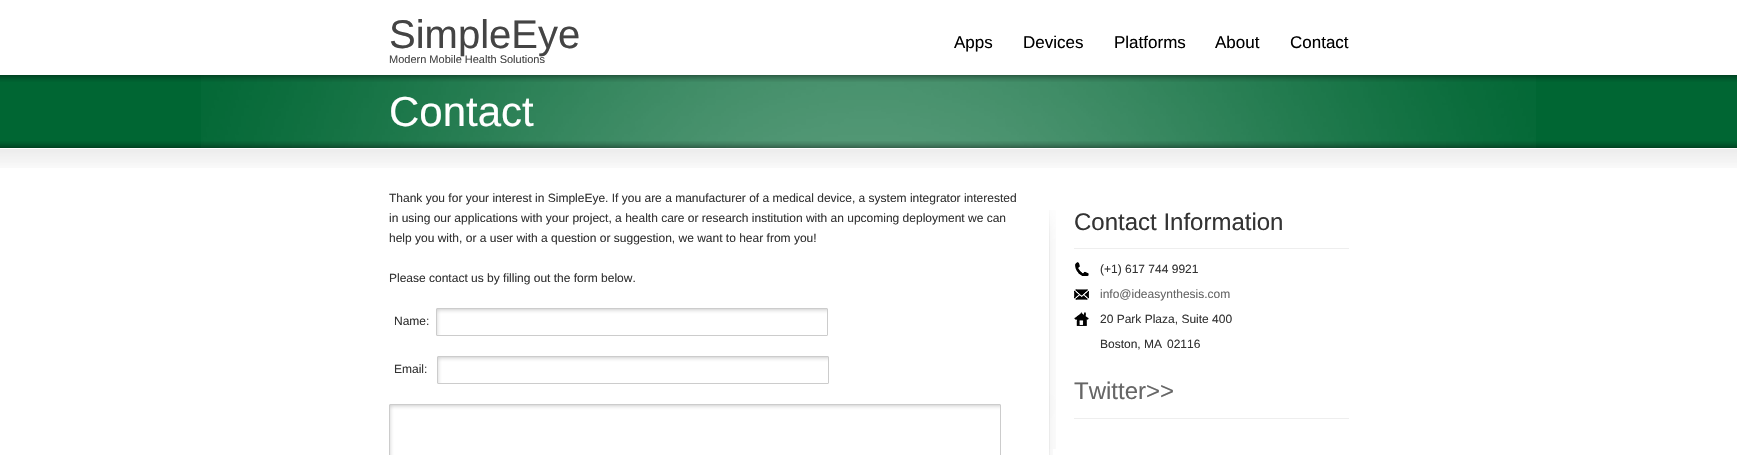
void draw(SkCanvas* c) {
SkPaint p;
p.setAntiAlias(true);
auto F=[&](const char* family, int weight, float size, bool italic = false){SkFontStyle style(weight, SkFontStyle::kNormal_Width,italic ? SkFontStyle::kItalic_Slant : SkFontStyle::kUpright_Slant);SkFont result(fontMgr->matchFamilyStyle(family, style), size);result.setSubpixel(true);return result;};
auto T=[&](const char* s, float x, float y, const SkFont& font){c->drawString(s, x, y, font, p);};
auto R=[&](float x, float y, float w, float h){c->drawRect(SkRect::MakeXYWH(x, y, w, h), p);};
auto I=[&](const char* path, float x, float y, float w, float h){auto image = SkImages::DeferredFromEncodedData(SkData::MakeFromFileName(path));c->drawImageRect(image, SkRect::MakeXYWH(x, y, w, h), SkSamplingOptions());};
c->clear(0xffffffff);
auto f1 = F("Liberation Sans",400,40);
p.setColor(0xff444444);
T("SimpleEye",389,48,f1);
auto f2 = F("Liberation Sans",400,11);
T("Modern Mobile Health Solutions",389,63,f2);
auto f3 = F("Liberation Sans",400,17);
p.setColor(0xff000000);
T("Apps",954,48,f3);
T("Devices",1023,48,f3);
T("Platforms",1114,48,f3);
T("About",1215,48,f3);
T("Contact",1290,48,f3);
p.setColor(0xff006633);
R(0,75,1737,73);
I("1.png",201,75,1335,73);
I("2.png",0,75,1737,7);
auto f4 = F("Liberation Sans",400,42);
p.setColor(0xffffffff);
T("Contact",389,126,f4);
I("3.png",0,141,1737,7);
I("4.png",0,149,1737,19);
auto f5 = F("Liberation Sans",400,12);
p.setColor(0xff333333);
T("Thank you for your interest in SimpleEye. If you are a manufacturer of a medical device, a system integrator interested",389,202,f5);
T("in using our applications with your project, a health care or research institution with an upcoming deployment we can",389,222,f5);
T("help you with, or a user with a question or suggestion, we want to hear from you!",389,242,f5);
T("Please contact us by filling out the form below.",389,282,f5);
T("Name:",394,325,f5);
I("5.png",437,309,390,26);
p.setStroke(true);
p.setStrokeWidth(1);
p.setColor(0xffcccccc);
c->drawRoundRect(SkRect::MakeXYWH(436.5,308.5,391,27),.5,.5,p);
p.setStroke(false);
p.setColor(0xff333333);
T("Email:",394,373,f5);
I("5.png",438,357,390,26);
p.setStroke(true);
p.setColor(0xffcccccc);
c->drawRoundRect(SkRect::MakeXYWH(437.5,356.5,391,27),.5,.5,p);
I("6.png",390,405,610,50);
c->drawRoundRect(SkRect::MakeXYWH(389.5,404.5,611,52),.5,.5,p);
I("7.png",1049,210,7,239);
auto f6 = F("Liberation Sans",400,24);
p.setStroke(false);
p.setColor(0xff333333);
T("Contact Information",1074,230,f6);
p.setColor(0xffeeeeee);
R(1074,248,275,1);
I("8.png",1075,262,14,14);
p.setColor(0xff333333);
T("(+1) 617 744 9921",1100,273,f5);
I("9.png",1074,289,15,11);
p.setColor(0xff666666);
T("info@ideasynthesis.com",1100,298,f5);
I("10.png",1074,312,15,14);
p.setColor(0xff333333);
T("20 Park Plaza, Suite 400",1100,323,f5);
T("Boston, MA",1100,348,f5);
T("02116",1167,348,f5);
p.setColor(0xff666666);
T("Twitter>>",1074,399,f6);
p.setColor(0xffeeeeee);
R(1074,418,275,1);
I("11.png",1049,449,4,6);
}
